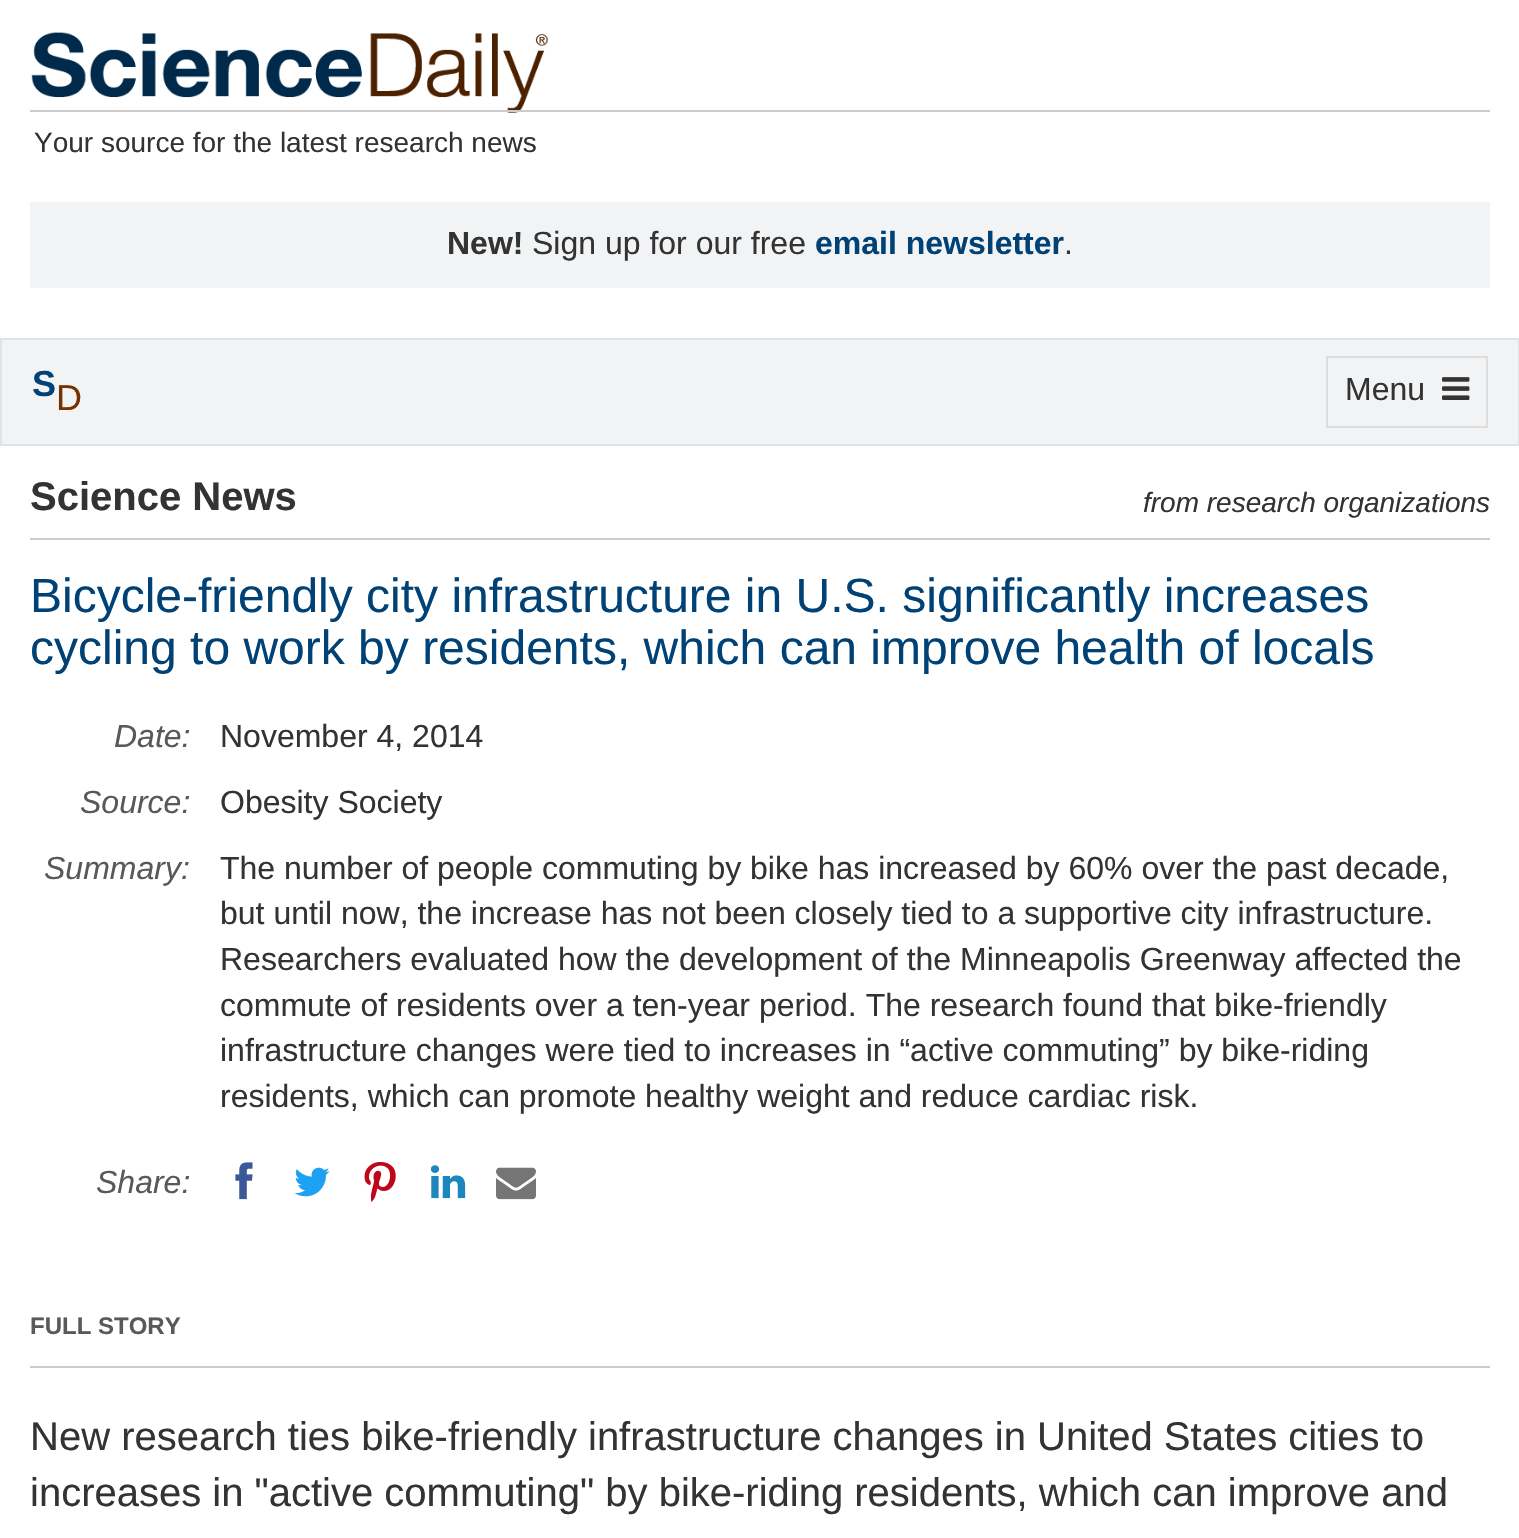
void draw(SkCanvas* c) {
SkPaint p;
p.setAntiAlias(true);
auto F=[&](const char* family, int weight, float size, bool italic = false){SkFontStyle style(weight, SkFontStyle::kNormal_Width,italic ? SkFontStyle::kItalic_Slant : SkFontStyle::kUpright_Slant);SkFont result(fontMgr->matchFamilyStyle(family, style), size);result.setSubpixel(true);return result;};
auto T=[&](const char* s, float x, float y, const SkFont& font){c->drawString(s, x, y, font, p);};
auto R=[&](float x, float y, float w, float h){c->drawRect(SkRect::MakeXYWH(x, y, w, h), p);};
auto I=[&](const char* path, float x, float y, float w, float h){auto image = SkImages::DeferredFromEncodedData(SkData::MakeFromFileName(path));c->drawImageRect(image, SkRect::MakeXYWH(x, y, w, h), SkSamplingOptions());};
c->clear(0xffffffff);
I("1.png",31,32,518,81);
p.setColor(0xffcccccc);
R(30,110,1460,2);
auto f1 = F("Liberation Sans",400,28);
p.setColor(0xff333333);
T("Your source for the latest research news",34,152,f1);
p.setColor(0xfff2f3f4);
R(30,202,1460,86);
auto f2 = F("Liberation Sans",700,32);
p.setColor(0xff333333);
T("New!",447,254,f2);
auto f3 = F("Liberation Sans",400,32);
T("Sign up for our free",532,254,f3);
p.setColor(0xff004276);
T("email newsletter",815,254,f2);
p.setColor(0xff333333);
T(".",1064,254,f3);
p.setColor(0xfff2f3f4);
c->drawRect(SkRect::MakeXYWH(1,339,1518,106),p);
p.setStroke(true);
p.setStrokeWidth(2);
p.setColor(0xffe0e2e5);
c->drawRect(SkRect::MakeXYWH(1,339,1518,106),p);
auto f4 = F("Liberation Sans",700,36);
p.setStroke(false);
p.setColor(0xff004276);
T("S",32,396,f4);
auto f5 = F("Liberation Sans",400,36);
p.setColor(0xff763300);
T("D",56,410,f5);
p.setStroke(true);
p.setColor(0xffdddddd);
c->drawRect(SkRect::MakeXYWH(1327,357,160,70),p);
p.setStroke(false);
p.setColor(0xff333333);
T("Menu",1345,400,f3);
I("2.png",1442,377,28,23);
auto f6 = F("Liberation Sans",700,40);
T("Science News",30,510,f6);
auto f7 = F("Liberation Sans",400,28,true);
T("from research organizations",1143,512,f7);
p.setColor(0xffcccccc);
R(30,538,1460,2);
auto f8 = F("Liberation Sans",400,48);
p.setColor(0xff004276);
T("Bicycle-friendly city infrastructure in U.S. significantly increases",30,612,f8);
T("cycling to work by residents, which can improve health of locals",30,664,f8);
auto f9 = F("Liberation Sans",400,32,true);
p.setColor(0xff595959);
T("Date:",114,747,f9);
p.setColor(0xff333333);
T("November 4, 2014",220,747,f3);
p.setColor(0xff595959);
T("Source:",80,813,f9);
p.setColor(0xff333333);
T("Obesity Society",220,813,f3);
p.setColor(0xff595959);
T("Summary:",44,879,f9);
p.setColor(0xff333333);
T("The number of people commuting by bike has increased by 60% over the past decade,",220,879,f3);
T("but until now, the increase has not been closely tied to a supportive city infrastructure.",220,924,f3);
T("Researchers evaluated how the development of the Minneapolis Greenway affected the",220,970,f3);
T("commute of residents over a ten-year period. The research found that bike-friendly",220,1016,f3);
T("infrastructure changes were tied to increases in “active commuting” by bike-riding",220,1061,f3);
T("residents, which can promote healthy weight and reduce cardiac risk.",220,1107,f3);
p.setColor(0xff595959);
T("Share:",96,1193,f9);
I("3.png",235,1162,18,38);
I("4.png",294,1167,36,30);
I("5.png",364,1162,32,40);
I("6.png",430,1165,36,34);
I("7.png",496,1167,40,33);
auto f10 = F("Liberation Sans",700,24);
T("FULL STORY",30,1334,f10);
p.setColor(0xffcccccc);
R(30,1366,1460,2);
auto f11 = F("Liberation Sans",400,40);
p.setColor(0xff333333);
T("New research ties bike-friendly infrastructure changes in United States cities to",30,1450,f11);
T("increases in \"active commuting\" by bike-riding residents, which can improve and",30,1506,f11);
}
